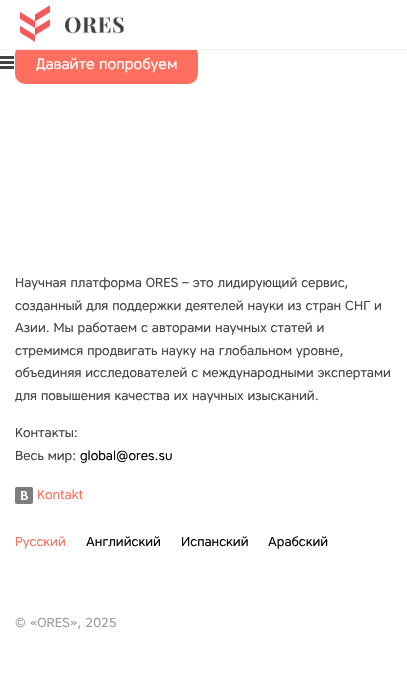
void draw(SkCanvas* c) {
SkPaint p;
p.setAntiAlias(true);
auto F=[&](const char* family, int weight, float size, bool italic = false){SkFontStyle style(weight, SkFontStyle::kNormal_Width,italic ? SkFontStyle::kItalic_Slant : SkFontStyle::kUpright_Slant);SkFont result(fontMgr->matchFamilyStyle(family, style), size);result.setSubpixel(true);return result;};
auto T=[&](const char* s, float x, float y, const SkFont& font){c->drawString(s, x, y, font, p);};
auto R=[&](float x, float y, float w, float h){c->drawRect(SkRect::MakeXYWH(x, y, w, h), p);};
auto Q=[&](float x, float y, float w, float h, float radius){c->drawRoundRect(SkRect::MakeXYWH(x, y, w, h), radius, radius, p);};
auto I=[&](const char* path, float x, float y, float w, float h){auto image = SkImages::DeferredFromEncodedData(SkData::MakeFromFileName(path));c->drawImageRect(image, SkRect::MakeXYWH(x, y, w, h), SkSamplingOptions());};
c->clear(0xffffffff);
p.setColor(0xffff6f60);
Q(15,44,183,40,10);
p.setColor(0xffffffff);
R(16,44,181,5);
p.setColor(0xfff2f2f2);
R(0,49,407,1);
I("1.png",20,5,104,38);
p.setColor(0xff424242);
R(0,56,14,3);
R(0,61,14,3);
R(0,66,14,3);
auto f1 = F("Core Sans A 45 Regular",400,15);
p.setColor(0xffffffff);
T("Давайте попробуем",36,69,f1);
auto f2 = F("Core Sans A 45 Regular",400,13);
p.setColor(0xff424242);
T("Научная платформа ORES – это лидирующий сервис,",15,287,f2);
T("созданный для поддержки деятелей науки из стран СНГ и",15,310,f2);
T("Азии. Мы работаем с авторами научных статей и",15,332,f2);
T("стремимся продвигать науку на глобальном уровне,",15,355,f2);
T("объединяя исследователей с международными экспертами",15,377,f2);
T("для повышения качества их научных изысканий.",15,400,f2);
T("Контакты:",15,437,f2);
T("Весь мир:",15,460,f2);
p.setColor(0xff000000);
T("global@ores.su",80,460,f2);
I("2.png",15,487,18,17);
p.setColor(0xffff6f60);
T("Kontakt",37,499,f2);
T("Русский",15,546,f2);
p.setColor(0xff000000);
T("Английский",86,546,f2);
T("Испанский",181,546,f2);
T("Арабский",268,546,f2);
p.setColor(0xff9b9b9b);
T("© «ORES», 2025",15,627,f2);
}
